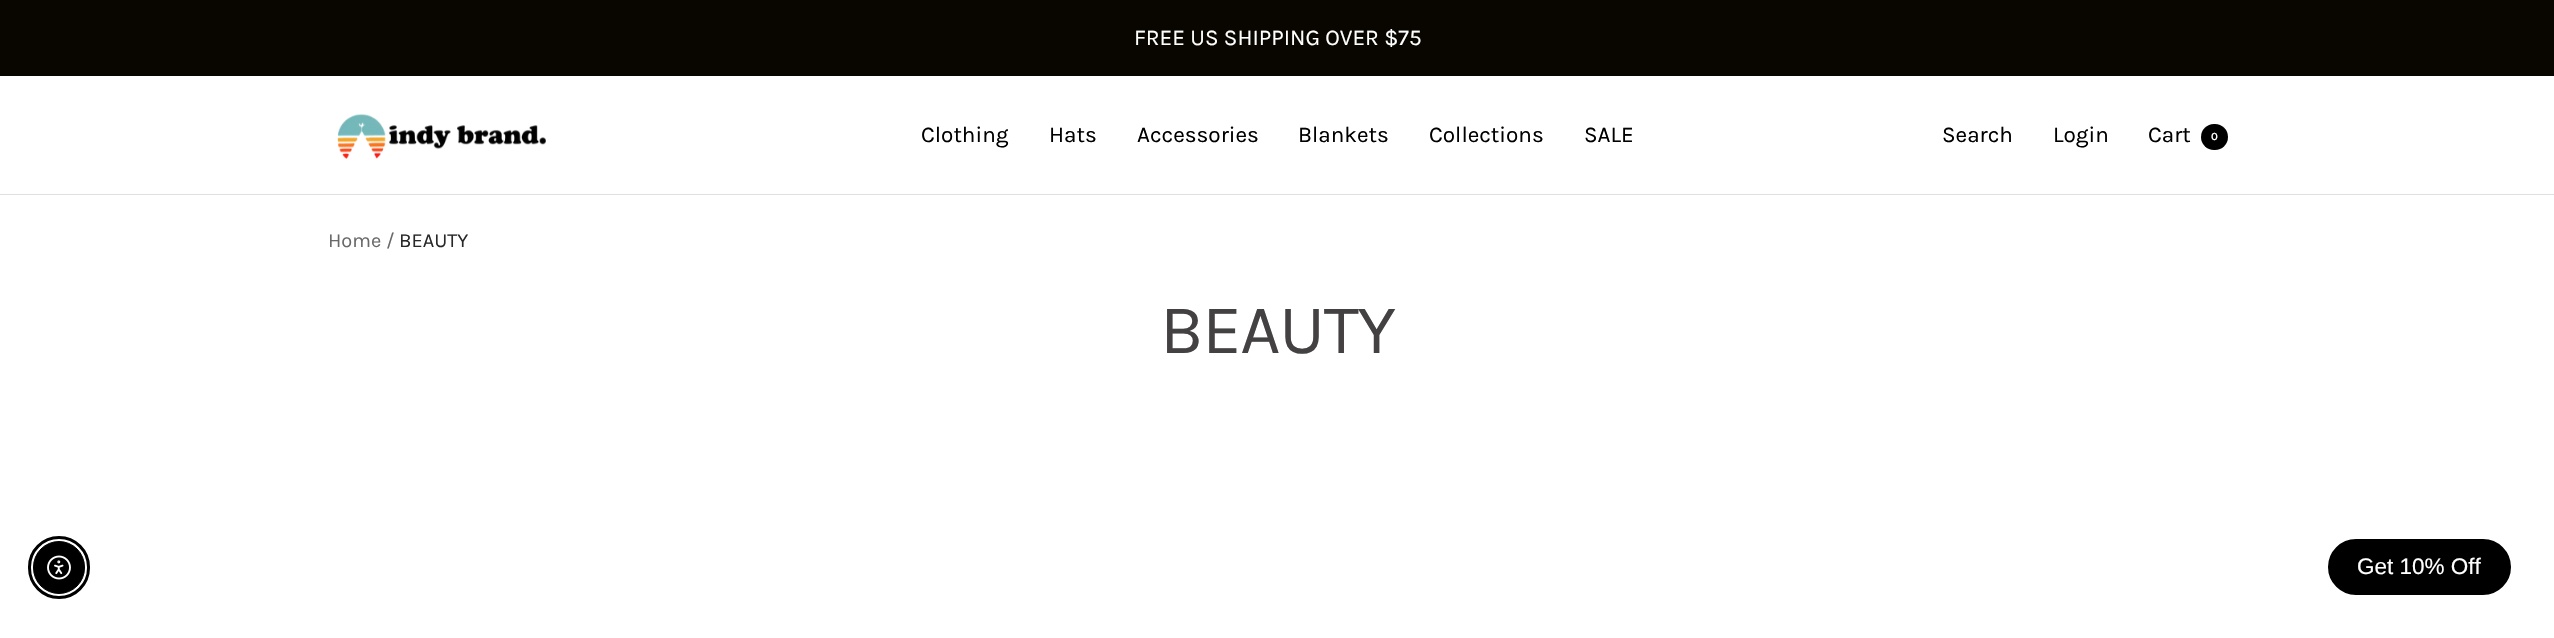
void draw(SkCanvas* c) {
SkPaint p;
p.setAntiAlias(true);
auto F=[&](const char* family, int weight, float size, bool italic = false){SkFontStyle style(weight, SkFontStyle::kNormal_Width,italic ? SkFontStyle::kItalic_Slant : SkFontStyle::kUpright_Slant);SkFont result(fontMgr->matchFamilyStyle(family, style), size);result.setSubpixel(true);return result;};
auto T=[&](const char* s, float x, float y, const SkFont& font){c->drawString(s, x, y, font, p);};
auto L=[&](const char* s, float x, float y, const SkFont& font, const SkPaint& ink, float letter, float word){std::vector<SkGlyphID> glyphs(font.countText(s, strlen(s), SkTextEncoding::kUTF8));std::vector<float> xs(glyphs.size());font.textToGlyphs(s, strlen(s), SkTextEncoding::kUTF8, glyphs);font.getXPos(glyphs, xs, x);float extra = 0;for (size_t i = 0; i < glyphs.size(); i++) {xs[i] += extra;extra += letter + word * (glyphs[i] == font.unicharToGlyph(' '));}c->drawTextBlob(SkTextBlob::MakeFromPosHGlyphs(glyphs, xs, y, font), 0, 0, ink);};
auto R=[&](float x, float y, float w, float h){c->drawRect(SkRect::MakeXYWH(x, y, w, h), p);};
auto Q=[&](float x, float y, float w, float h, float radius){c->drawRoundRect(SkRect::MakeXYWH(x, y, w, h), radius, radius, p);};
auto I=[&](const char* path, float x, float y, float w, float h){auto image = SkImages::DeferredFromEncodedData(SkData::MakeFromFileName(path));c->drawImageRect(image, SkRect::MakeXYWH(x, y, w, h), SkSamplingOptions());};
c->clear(0xffffffff);
p.setColor(0xff090600);
R(0,0,2554,76);
auto f1 = F("Karla",400,22.5);
p.setColor(0xffffffff);
T("FREE US SHIPPING OVER $75",1134,45,f1);
p.setColor(0xffdfdfdf);
R(0,194,2554,1);
I("1.png",337,114,209,45);
p.setColor(0xff000000);
T("Clothing",921,142,f1);
T("Hats",1049,142,f1);
T("Accessories",1137,142,f1);
T("Blankets",1298,142,f1);
T("Collections",1429,142,f1);
T("SALE",1584,142,f1);
T("Search",1942,142,f1);
T("Login",2053,142,f1);
T("Cart",2148,142,f1);
Q(2201,124,27,26,13);
auto f2 = F("Karla",600,11);
p.setColor(0xffffffff);
T("0",2211,140,f2);
auto f3 = F("Karla",400,20);
p.setColor(0xff696969);
T("Home /",328,247,f3);
p.setColor(0xff282828);
T("BEAUTY",399,247,f3);
auto f4 = F("Karla",400,70);
p.setColor(0xff434141);
L("BEAUTY",1160,353,f4,p,-1.25,0);
p.setStroke(true);
p.setStrokeWidth(3);
p.setColor(0xff000000);
c->drawRoundRect(SkRect::MakeXYWH(29.5,537.5,59,60),29.5,29.5,p);
p.setStroke(false);
c->drawRoundRect(SkRect::MakeXYWH(33.5,541.5,51,52),25.5,25.5,p);
p.setStroke(true);
p.setStrokeWidth(1);
c->drawRoundRect(SkRect::MakeXYWH(33.5,541.5,51,52),25.5,25.5,p);
I("2.png",47,555,24,25);
p.setStroke(false);
c->drawRoundRect(SkRect::MakeXYWH(2326,537,187,60),30,30,p);
p.setStroke(true);
p.setStrokeWidth(4);
p.setColor(0xffffffff);
c->drawRoundRect(SkRect::MakeXYWH(2326,537,187,60),30,30,p);
c->save();
c->clipRect(SkRect::MakeXYWH(2358,554,123,26));
auto f5 = F("Liberation Sans",400,22.5);
p.setStroke(false);
T("Get 10% Off",2357,574,f5);
c->restore();
}
